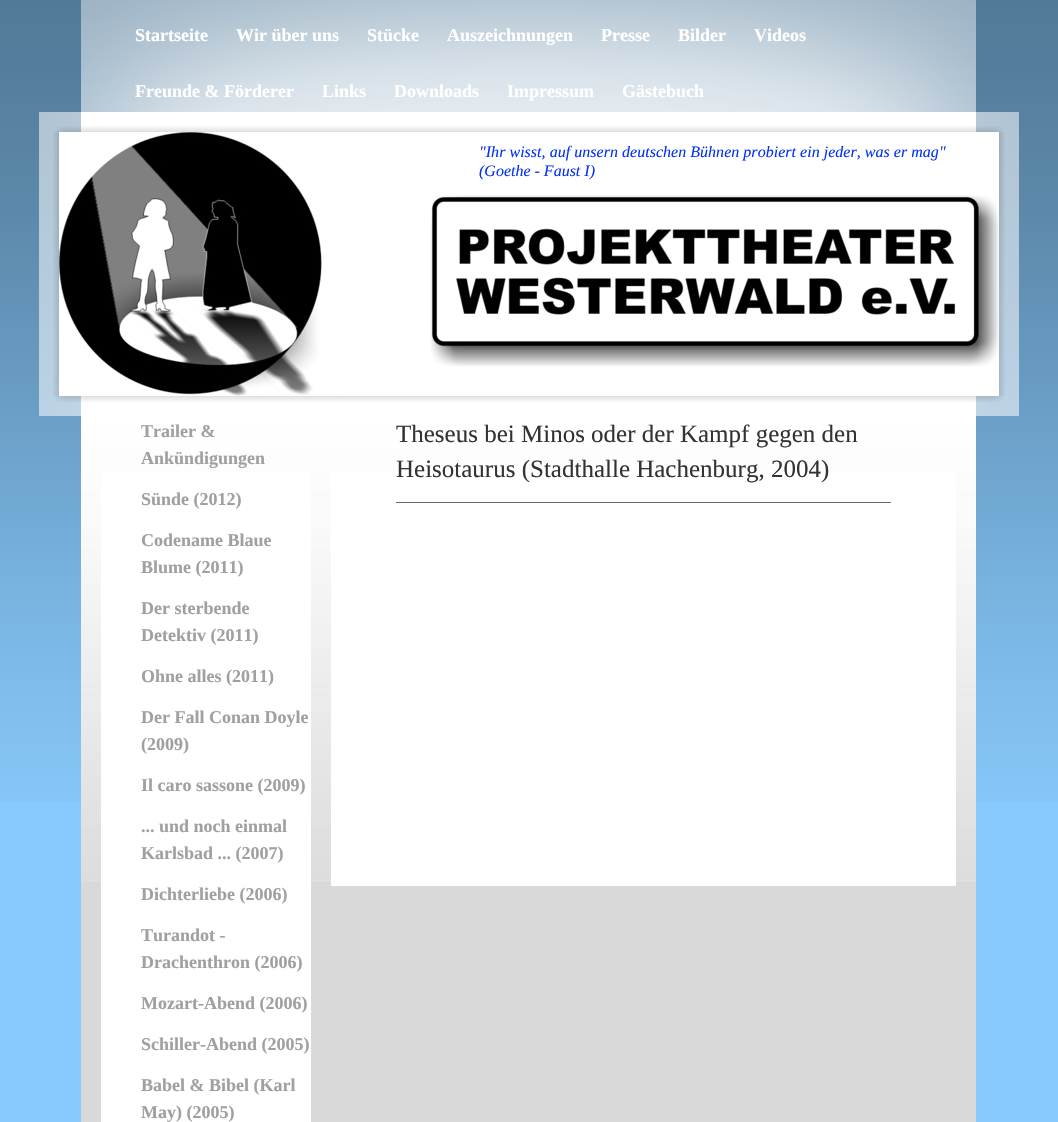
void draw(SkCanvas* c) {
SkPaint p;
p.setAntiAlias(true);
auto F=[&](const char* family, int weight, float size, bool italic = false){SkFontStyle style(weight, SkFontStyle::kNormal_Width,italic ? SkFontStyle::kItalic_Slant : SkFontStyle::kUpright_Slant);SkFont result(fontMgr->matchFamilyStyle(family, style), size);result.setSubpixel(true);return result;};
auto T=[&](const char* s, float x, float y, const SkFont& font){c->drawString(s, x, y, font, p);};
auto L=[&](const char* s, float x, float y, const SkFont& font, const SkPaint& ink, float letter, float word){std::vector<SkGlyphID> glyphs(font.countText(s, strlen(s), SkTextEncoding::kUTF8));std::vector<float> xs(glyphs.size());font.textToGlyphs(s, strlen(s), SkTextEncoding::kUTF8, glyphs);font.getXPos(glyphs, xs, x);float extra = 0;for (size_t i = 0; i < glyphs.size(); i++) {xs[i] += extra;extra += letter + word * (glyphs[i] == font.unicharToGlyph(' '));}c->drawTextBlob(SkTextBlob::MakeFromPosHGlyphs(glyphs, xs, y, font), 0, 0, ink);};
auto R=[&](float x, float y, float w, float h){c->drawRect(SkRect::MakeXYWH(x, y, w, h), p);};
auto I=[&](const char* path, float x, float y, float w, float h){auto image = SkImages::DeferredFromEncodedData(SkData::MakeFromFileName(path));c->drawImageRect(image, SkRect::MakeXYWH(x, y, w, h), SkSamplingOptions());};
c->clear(0xff88cafd);
I("1.png",0,0,1058,802);
I("2.png",81,0,895,112);
auto f1 = F("Liberation Serif",700,18);
p.setColor(0xffffffff);
T("Startseite",135,41,f1);
T("Wir über uns",236,41,f1);
T("Stücke",367,41,f1);
T("Auszeichnungen",447,41,f1);
T("Presse",601,41,f1);
T("Bilder",678,41,f1);
T("Videos",754,41,f1);
T("Freunde & Förderer",135,97,f1);
T("Links",322,97,f1);
T("Downloads",394,97,f1);
T("Impressum",507,97,f1);
T("Gästebuch",622,97,f1);
I("3.png",39,112,980,304);
I("4.png",55,126,948,6);
I("5.png",53,132,952,264);
I("6.png",59,132,940,264);
auto f2 = F("Liberation Serif",400,16,true);
p.setColor(0xff0231f9);
L("\"Ihr wisst, auf unsern deutschen Bühnen probiert ein jeder, was er mag\"",479,157,f2,p,.03,0);
T("(Goethe - Faust I)",479,176,f2);
I("7.png",55,396,948,6);
p.setColor(0xffd9d9d9);
R(81,882,895,240);
I("8.png",81,416,895,466);
p.setColor(0xffffffff);
R(101,472,210,650);
p.setColor(0xff9ea0a2);
T("Trailer &",141,437,f1);
T("Ankündigungen",141,464,f1);
T("Sünde (2012)",141,505,f1);
T("Codename Blaue",141,546,f1);
T("Blume (2011)",141,573,f1);
T("Der sterbende",141,614,f1);
T("Detektiv (2011)",141,641,f1);
T("Ohne alles (2011)",141,682,f1);
T("Der Fall Conan Doyle",141,723,f1);
T("(2009)",141,750,f1);
T("Il caro sassone (2009)",141,791,f1);
T("... und noch einmal",141,832,f1);
T("Karlsbad ... (2007)",141,859,f1);
T("Dichterliebe (2006)",141,900,f1);
T("Turandot -",141,941,f1);
T("Drachenthron (2006)",141,968,f1);
T("Mozart-Abend (2006)",141,1009,f1);
T("Schiller-Abend (2005)",141,1050,f1);
T("Babel & Bibel (Karl",141,1091,f1);
T("May) (2005)",141,1118,f1);
p.setColor(0xffffffff);
R(331,472,625,414);
auto f3 = F("Liberation Serif",400,25);
p.setColor(0xff333333);
T("Theseus bei Minos oder der Kampf gegen den",396,442,f3);
T("Heisotaurus (Stadthalle Hachenburg, 2004)",396,477,f3);
p.setColor(0xff666666);
R(396,502,495,1);
}
